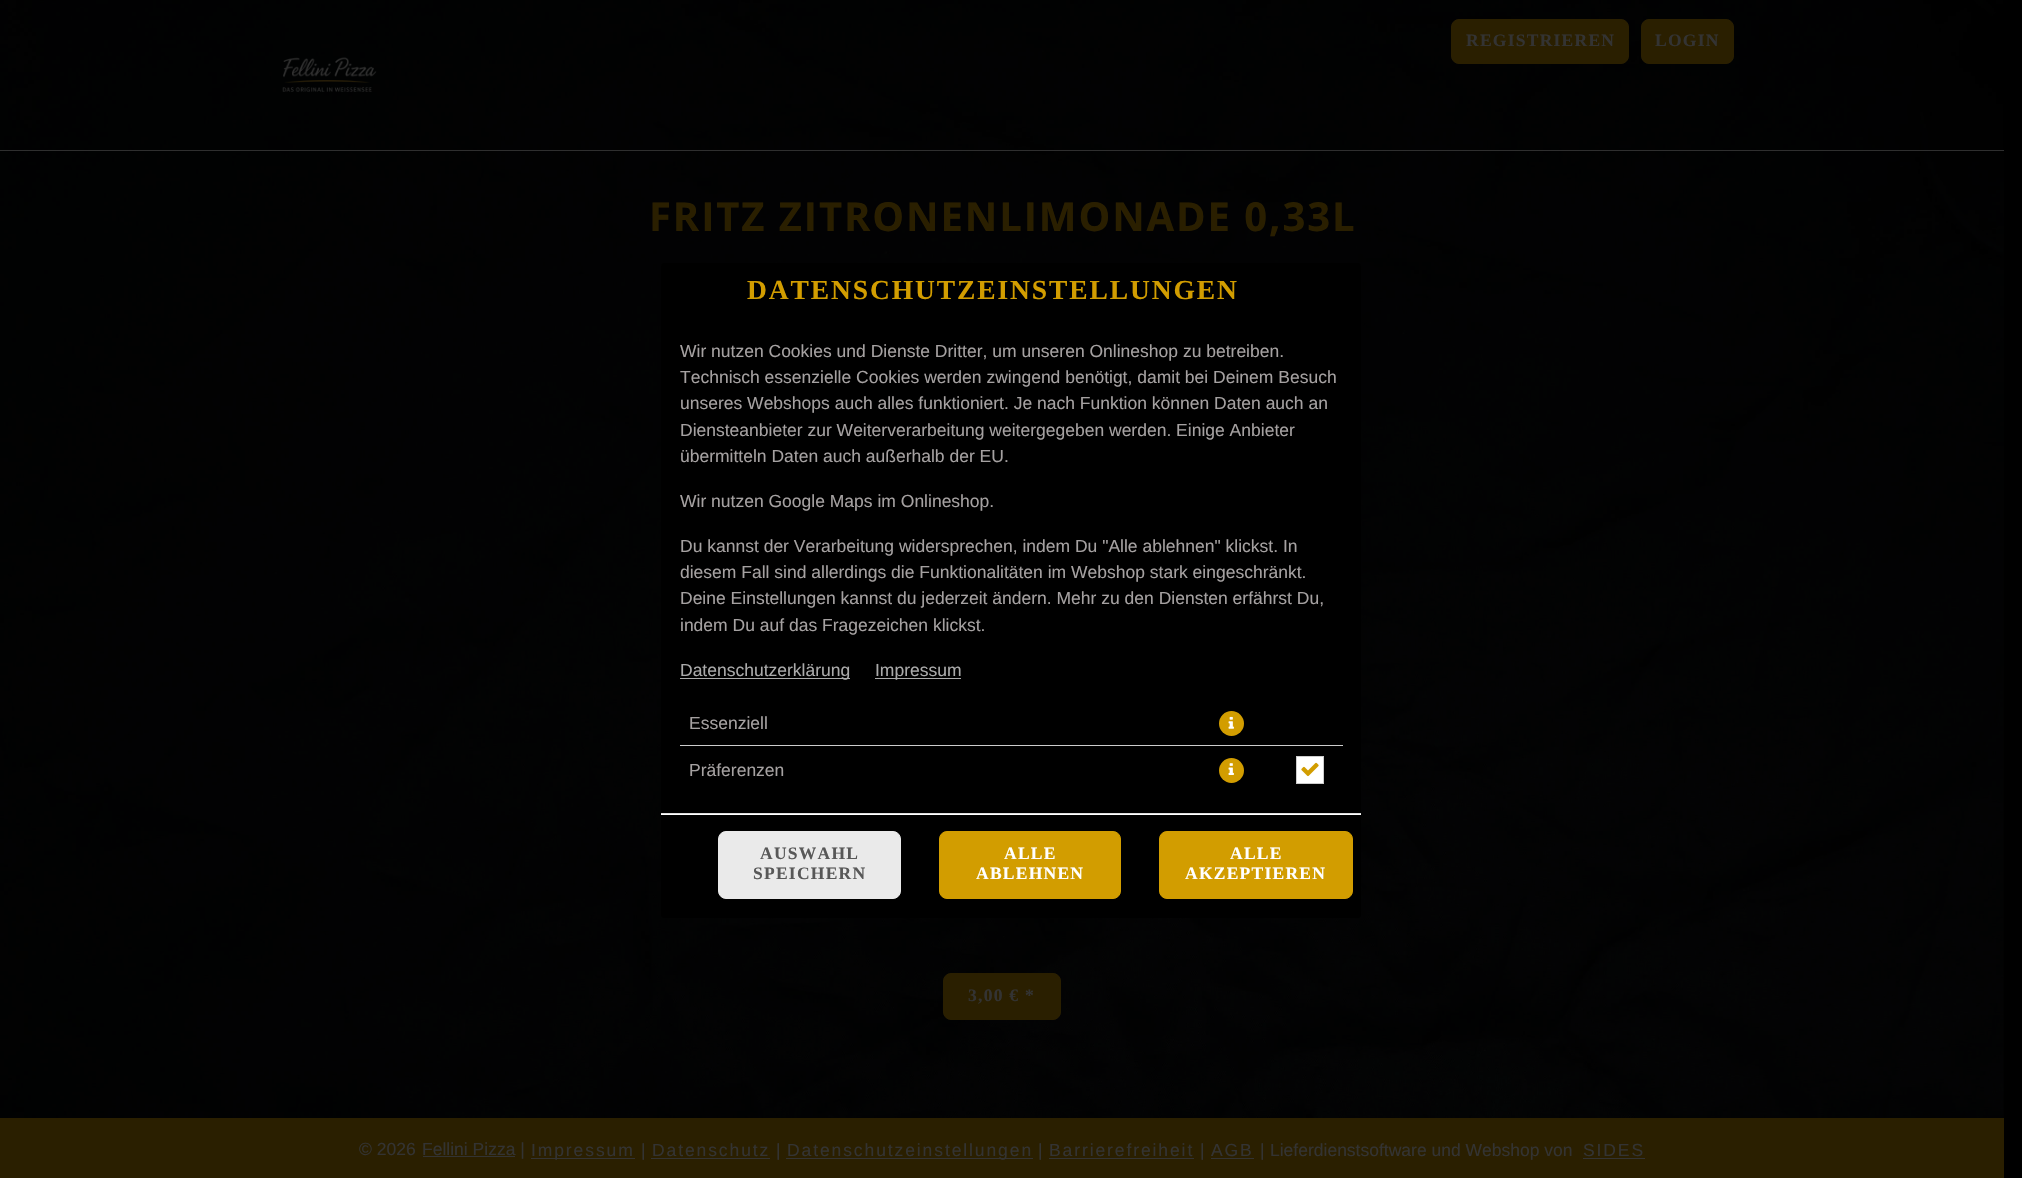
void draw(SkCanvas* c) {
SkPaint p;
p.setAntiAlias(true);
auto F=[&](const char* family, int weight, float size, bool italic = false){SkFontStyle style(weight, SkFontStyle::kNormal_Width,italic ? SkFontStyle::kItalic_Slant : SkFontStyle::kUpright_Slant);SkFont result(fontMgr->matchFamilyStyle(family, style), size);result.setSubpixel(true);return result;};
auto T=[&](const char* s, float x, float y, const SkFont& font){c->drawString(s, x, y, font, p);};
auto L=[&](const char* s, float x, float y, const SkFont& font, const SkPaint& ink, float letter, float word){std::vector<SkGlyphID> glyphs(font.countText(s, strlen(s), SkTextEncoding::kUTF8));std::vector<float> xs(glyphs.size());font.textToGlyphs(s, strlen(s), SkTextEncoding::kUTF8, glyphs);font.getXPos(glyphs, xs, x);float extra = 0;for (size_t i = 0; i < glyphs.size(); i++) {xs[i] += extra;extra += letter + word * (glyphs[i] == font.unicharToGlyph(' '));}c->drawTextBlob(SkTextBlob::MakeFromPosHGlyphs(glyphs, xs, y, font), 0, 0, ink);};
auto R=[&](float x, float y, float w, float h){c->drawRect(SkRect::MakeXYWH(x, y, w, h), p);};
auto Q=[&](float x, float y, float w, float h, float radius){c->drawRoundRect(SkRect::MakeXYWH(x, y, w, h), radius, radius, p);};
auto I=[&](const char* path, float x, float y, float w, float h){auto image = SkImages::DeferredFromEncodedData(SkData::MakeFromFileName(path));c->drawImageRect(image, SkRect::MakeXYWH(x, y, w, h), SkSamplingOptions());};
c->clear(0xff000000);
I("1.png",0,0,2003,150);
p.setColor(0xff2a1f00);
c->drawRoundRect(SkRect::MakeXYWH(1451.5,19.5,177,44),7.5,7.5,p);
p.setStroke(true);
p.setStrokeWidth(1);
c->drawRoundRect(SkRect::MakeXYWH(1451.5,19.5,177,44),7.5,7.5,p);
auto f1 = F("Liberation Serif",700,17.5);
p.setStroke(false);
p.setColor(0xff333333);
L("REGISTRIEREN",1466,46,f1,p,1.25,0);
p.setColor(0xff2a1f00);
c->drawRoundRect(SkRect::MakeXYWH(1641.5,19.5,92,44),7.5,7.5,p);
p.setStroke(true);
c->drawRoundRect(SkRect::MakeXYWH(1641.5,19.5,92,44),7.5,7.5,p);
p.setStroke(false);
p.setColor(0xff333333);
L("LOGIN",1655,46,f1,p,1.25,0);
p.setColor(0xff2f2f2f);
R(0,150,2004,1);
I("2.png",282,57,95,35);
I("3.png",0,151,2004,967);
auto f2 = F("Open Sans",700,40);
p.setColor(0xff2a1f00);
L("FRITZ ZITRONENLIMONADE 0,33L",649,231,f2,p,1.9,0);
c->drawRoundRect(SkRect::MakeXYWH(943.5,973.5,117,46),7.5,7.5,p);
p.setStroke(true);
c->drawRoundRect(SkRect::MakeXYWH(943.5,973.5,117,46),7.5,7.5,p);
p.setStroke(false);
p.setColor(0xff333333);
L("3,00 € *",968,1001,f1,p,1.25,0);
p.setColor(0xff000000);
Q(661,263,700,655,2.5);
auto f3 = F("Liberation Serif",700,27.5);
p.setColor(0xffd29d00);
L("DATENSCHUTZEINSTELLUNGEN",747,299,f3,p,1.9,0);
auto f4 = F("Liberation Sans",400,17.5);
p.setColor(0xffa5a1a1);
T("Wir nutzen Cookies und Dienste Dritter, um unseren Onlineshop zu betreiben.",680,357,f4);
T("Technisch essenzielle Cookies werden zwingend benötigt, damit bei Deinem Besuch",680,383,f4);
T("unseres Webshops auch alles funktioniert. Je nach Funktion können Daten auch an",680,409,f4);
T("Diensteanbieter zur Weiterverarbeitung weitergegeben werden. Einige Anbieter",680,436,f4);
T("übermitteln Daten auch außerhalb der EU.",680,462,f4);
T("Wir nutzen Google Maps im Onlineshop.",680,507,f4);
T("Du kannst der Verarbeitung widersprechen, indem Du \"Alle ablehnen\" klickst. In",680,552,f4);
T("diesem Fall sind allerdings die Funktionalitäten im Webshop stark eingeschränkt.",680,578,f4);
T("Deine Einstellungen kannst du jederzeit ändern. Mehr zu den Diensten erfährst Du,",680,604,f4);
T("indem Du auf das Fragezeichen klickst.",680,631,f4);
p.setColor(0xffaaaaaa);
R(680,678,170,1);
T("Datenschutzerklärung",680,676,f4);
R(875,678,86,1);
T("Impressum",875,676,f4);
p.setColor(0xffcccccc);
R(680,745,663,1);
p.setColor(0xffa5a1a1);
T("Essenziell",689,729,f4);
p.setColor(0xffd29d00);
c->drawCircle(1231.5,723.5,12.5,p);
I("4.png",1228,716,6,13);
p.setColor(0xffa5a1a1);
T("Präferenzen",689,776,f4);
p.setColor(0xffd29d00);
c->drawCircle(1231.5,770.5,12.5,p);
I("5.png",1228,763,6,12);
p.setColor(0xffffffff);
c->drawRect(SkRect::MakeXYWH(1296.5,756.5,27,27),p);
p.setStroke(true);
p.setColor(0xffcccccc);
c->drawRect(SkRect::MakeXYWH(1296.5,756.5,27,27),p);
I("6.png",1301,762,18,15);
p.setStroke(false);
p.setColor(0xffffffff);
R(661,814,700,1);
p.setColor(0xffdddddd);
R(661,813,700,1);
p.setColor(0xffeaeaea);
c->drawRoundRect(SkRect::MakeXYWH(718.5,831.5,182,67),7.5,7.5,p);
p.setStroke(true);
c->drawRoundRect(SkRect::MakeXYWH(718.5,831.5,182,67),7.5,7.5,p);
p.setStroke(false);
p.setColor(0xff585858);
L("AUSWAHL",760,859,f1,p,1.25,0);
L("SPEICHERN",753,879,f1,p,1.25,0);
p.setColor(0xffd29d00);
c->drawRoundRect(SkRect::MakeXYWH(939.5,831.5,181,67),7.5,7.5,p);
p.setStroke(true);
c->drawRoundRect(SkRect::MakeXYWH(939.5,831.5,181,67),7.5,7.5,p);
p.setStroke(false);
p.setColor(0xffffffff);
L("ALLE",1004,859,f1,p,1.25,0);
L("ABLEHNEN",976,879,f1,p,1.25,0);
p.setColor(0xffd29d00);
c->drawRoundRect(SkRect::MakeXYWH(1159.5,831.5,193,67),7.5,7.5,p);
p.setStroke(true);
c->drawRoundRect(SkRect::MakeXYWH(1159.5,831.5,193,67),7.5,7.5,p);
p.setStroke(false);
p.setColor(0xffffffff);
L("ALLE",1230,859,f1,p,1.25,0);
L("AKZEPTIEREN",1185,879,f1,p,1.25,0);
p.setColor(0xff2a1f00);
R(0,1118,2004,60);
p.setColor(0xff333333);
T("© 2026",359,1155,f4);
R(423,1156,92,1);
T("Fellini Pizza |",422,1155,f4);
R(531,1158,104,1);
L("Impressum",531,1156,f4,p,1.9,0);
T("|",641,1156,f4);
L("Datenschutz",652,1156,f4,p,1.9,0);
R(651,1158,119,1);
T("|",776,1156,f4);
R(786,1158,247,1);
L("Datenschutzeinstellungen",787,1156,f4,p,1.9,0);
T("|",1038,1156,f4);
L("Barrierefreiheit",1049,1156,f4,p,1.9,0);
R(1049,1158,145,1);
T("|",1200,1156,f4);
L("AGB",1211,1156,f4,p,1.9,0);
R(1211,1158,43,1);
T("|",1260,1156,f4);
T("Lieferdienstsoftware und Webshop von",1270,1156,f4);
L("SIDES",1583,1156,f4,p,1.9,0);
R(1583,1158,62,1);
}
